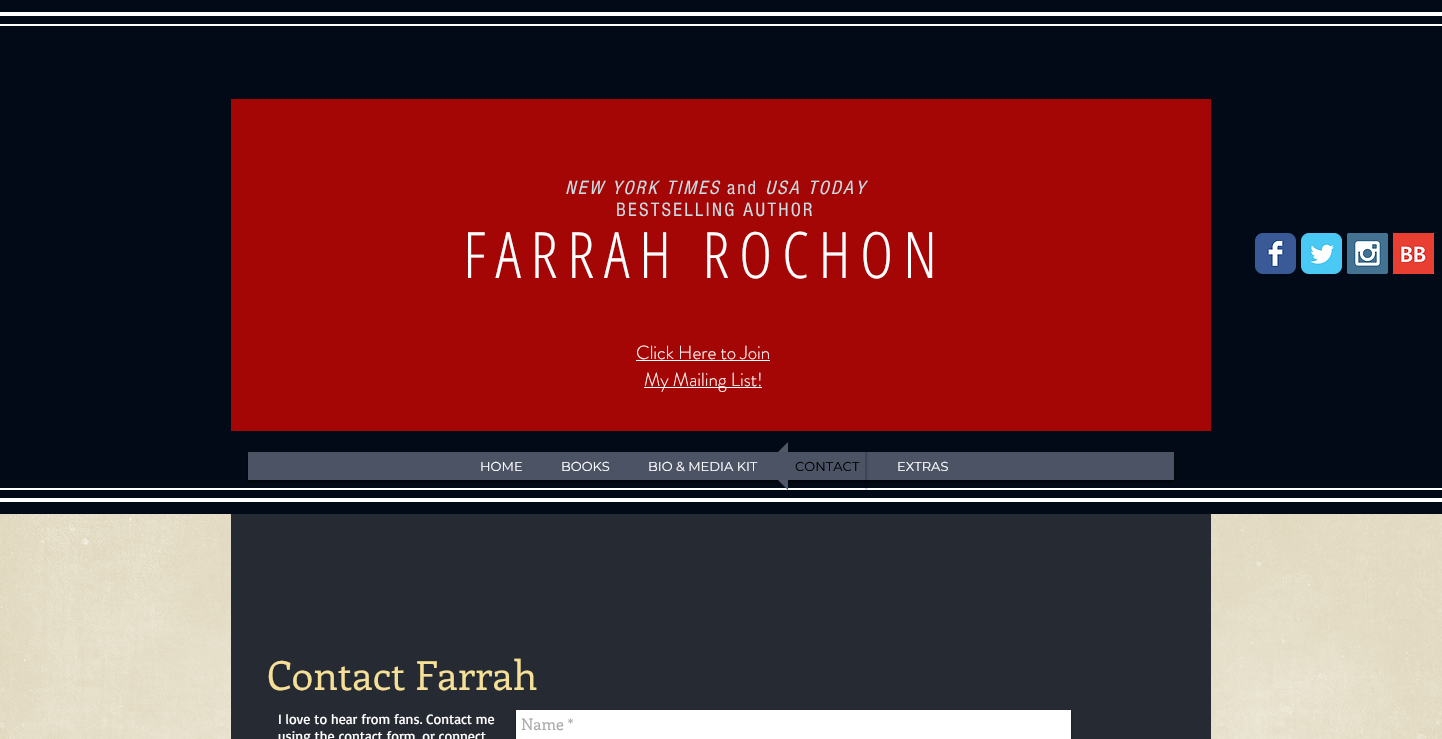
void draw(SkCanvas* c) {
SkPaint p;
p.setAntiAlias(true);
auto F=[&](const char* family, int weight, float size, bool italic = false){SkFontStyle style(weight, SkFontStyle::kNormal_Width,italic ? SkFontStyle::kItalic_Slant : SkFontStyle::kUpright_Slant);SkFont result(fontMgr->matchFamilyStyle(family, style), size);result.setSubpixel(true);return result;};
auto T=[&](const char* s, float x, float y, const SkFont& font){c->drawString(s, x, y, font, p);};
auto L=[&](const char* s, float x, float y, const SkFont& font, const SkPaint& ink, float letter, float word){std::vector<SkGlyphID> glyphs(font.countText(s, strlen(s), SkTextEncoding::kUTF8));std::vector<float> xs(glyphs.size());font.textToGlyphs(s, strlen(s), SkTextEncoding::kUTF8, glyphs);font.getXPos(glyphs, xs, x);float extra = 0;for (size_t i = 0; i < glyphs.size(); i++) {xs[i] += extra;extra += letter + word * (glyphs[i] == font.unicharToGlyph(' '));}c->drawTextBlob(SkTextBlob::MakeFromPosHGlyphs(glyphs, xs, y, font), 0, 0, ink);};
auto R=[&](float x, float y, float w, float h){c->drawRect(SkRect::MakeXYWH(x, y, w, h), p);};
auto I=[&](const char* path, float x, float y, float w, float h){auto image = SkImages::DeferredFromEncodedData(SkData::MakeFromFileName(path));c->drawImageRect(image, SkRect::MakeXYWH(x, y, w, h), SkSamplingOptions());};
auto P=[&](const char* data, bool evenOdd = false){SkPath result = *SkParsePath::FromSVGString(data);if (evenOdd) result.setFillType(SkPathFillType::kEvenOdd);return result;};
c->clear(0xffdfd6bb);
p.setColor(0xff030a17);
R(0,0,1442,514);
p.setColor(0xffffffff);
R(0,12,1442,4);
R(0,498,1442,4);
R(0,24,1442,2);
R(0,488,1442,2);
p.setColor(0xffa40606);
R(231,99,980,332);
auto f1 = F("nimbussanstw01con",400,20,true);
p.setColor(0xffcadde3);
L("NEW YORK TIMES",565,194,f1,p,2,0);
auto f2 = F("nimbussanstw01con",400,20);
L("and",727,194,f2,p,2,0);
L("USA TODAY",765,194,f1,p,2,0);
L("BESTSELLING AUTHOR",616,216,f2,p,2,0);
auto f3 = F("Open Sans Condensed",300,64);
p.setColor(0xffffffff);
L("FARRAH ROCHON",463,278,f3,p,9.6,0);
I("1.png",1255,233,41,41);
I("2.png",1301,233,41,41);
I("3.png",1347,233,41,41);
I("4.png",1393,233,41,41);
auto f4 = F("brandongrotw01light",300,19);
T("Click Here to Join",636,359,f4);
R(636,360,134,1);
R(644,387,118,1);
T("My Mailing List!",644,386,f4);
p.setColor(0xb3000000);
p.setMaskFilter(SkMaskFilter::MakeBlur(kNormal_SkBlurStyle, 1.5));
c->drawRect(SkRect::MakeXYWH(248,454,926,28),p);
p.setMaskFilter(nullptr);
p.setColor(0xff4b5364);
R(248,452,926,28);
auto f5 = F("Montserrat",400,13);
p.setColor(0xffffffff);
T("HOME",480,471,f5);
T("BOOKS",561,471,f5);
T("BIO & MEDIA KIT",648,471,f5);
c->save();
c->clipPath(P("M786 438h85v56h-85zm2 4h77v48h-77z",true),true);
p.setColor(0x33000000);
p.setMaskFilter(SkMaskFilter::MakeBlur(kNormal_SkBlurStyle, 1));
c->drawRect(SkRect::MakeXYWH(790,442,77,48),p);
p.setMaskFilter(nullptr);
c->restore();
p.setColor(0xff4f5869);
c->drawPath(P("M788 452h-10l10-10zm-10 28h10v10z"),p);
p.setColor(0xff000000);
T("CONTACT",795,471,f5);
p.setColor(0xffffffff);
T("EXTRAS",897,471,f5);
I("5.png",0,514,1442,225);
p.setColor(0xff262a32);
R(231,514,980,225);
auto f6 = F("Enriqueta",400,40);
p.setColor(0xfff6e098);
T("Contact Farrah",267,690,f6);
auto f7 = F("Basic",400,14);
p.setColor(0xffffffff);
T("I love to hear from fans. Contact me",278,724,f7);
T("using the contact form, or connect",278,741,f7);
p.setColor(0x99000000);
p.setMaskFilter(SkMaskFilter::MakeBlur(kNormal_SkBlurStyle, 1));
c->drawRect(SkRect::MakeXYWH(516,711,555,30),p);
p.setMaskFilter(nullptr);
p.setColor(0xffffffff);
R(516,710,555,29);
auto f8 = F("Enriqueta",400,16);
p.setColor(0xffa9a9a9);
T("Name *",521,730,f8);
}
